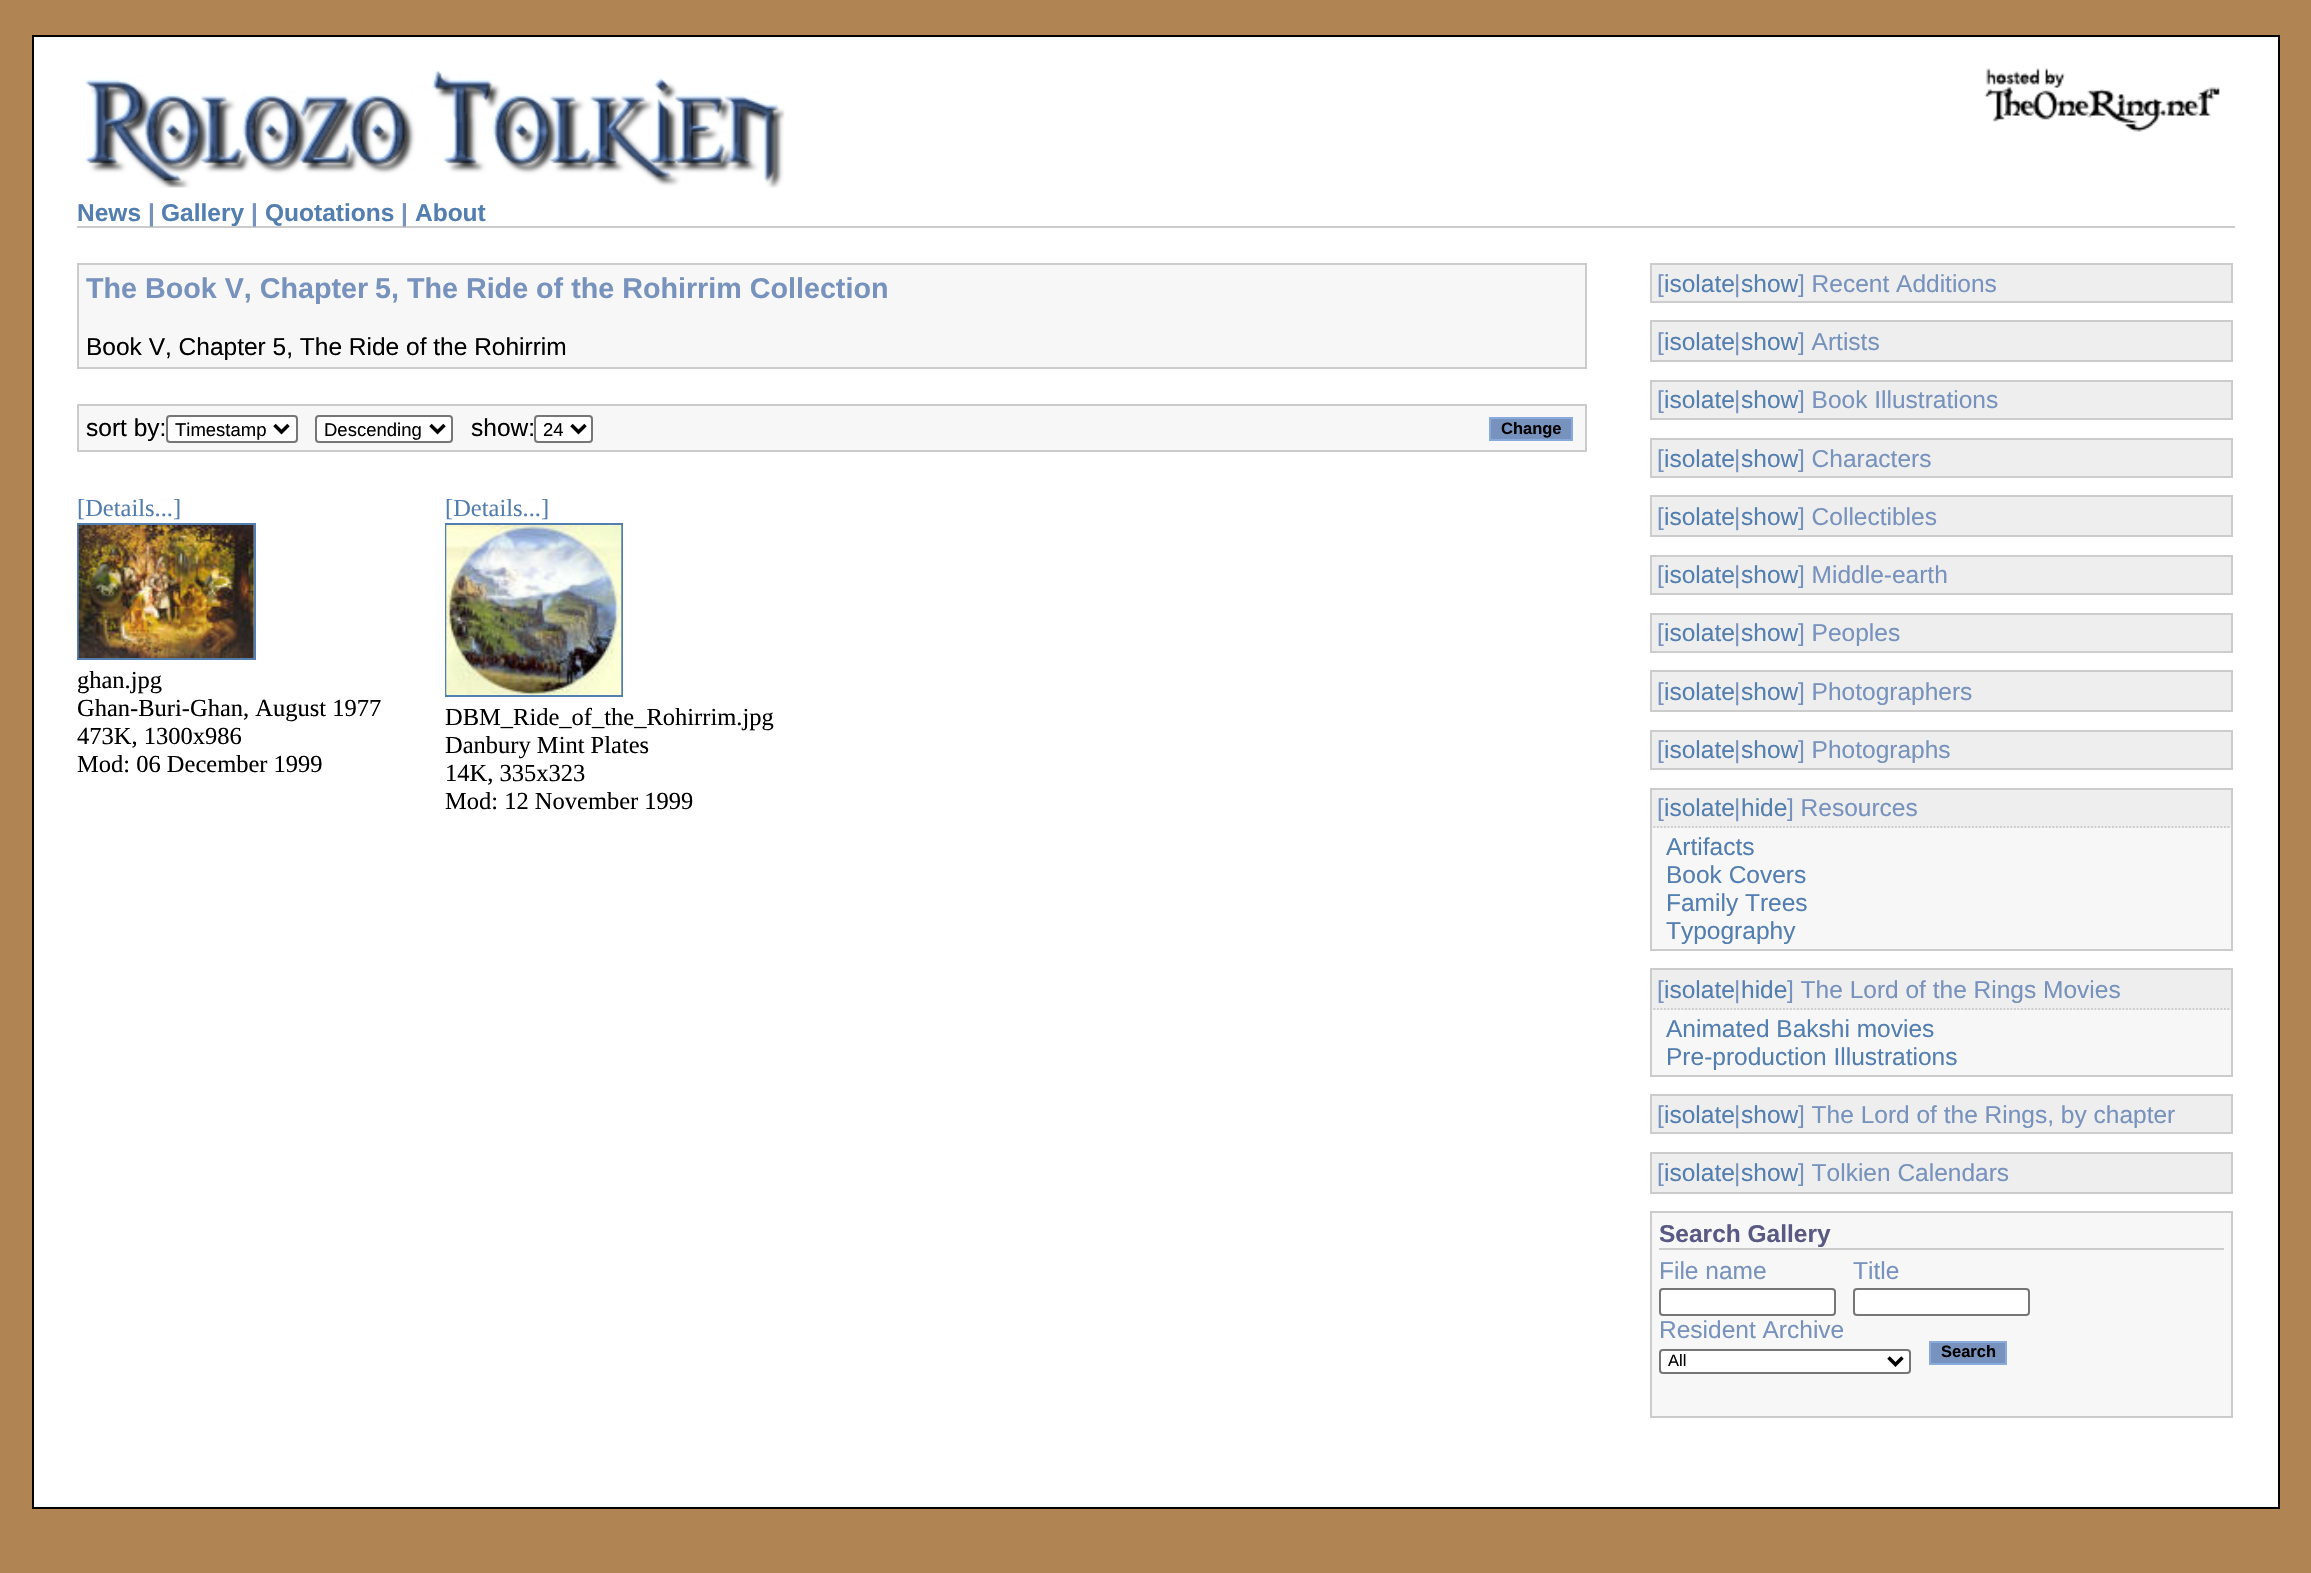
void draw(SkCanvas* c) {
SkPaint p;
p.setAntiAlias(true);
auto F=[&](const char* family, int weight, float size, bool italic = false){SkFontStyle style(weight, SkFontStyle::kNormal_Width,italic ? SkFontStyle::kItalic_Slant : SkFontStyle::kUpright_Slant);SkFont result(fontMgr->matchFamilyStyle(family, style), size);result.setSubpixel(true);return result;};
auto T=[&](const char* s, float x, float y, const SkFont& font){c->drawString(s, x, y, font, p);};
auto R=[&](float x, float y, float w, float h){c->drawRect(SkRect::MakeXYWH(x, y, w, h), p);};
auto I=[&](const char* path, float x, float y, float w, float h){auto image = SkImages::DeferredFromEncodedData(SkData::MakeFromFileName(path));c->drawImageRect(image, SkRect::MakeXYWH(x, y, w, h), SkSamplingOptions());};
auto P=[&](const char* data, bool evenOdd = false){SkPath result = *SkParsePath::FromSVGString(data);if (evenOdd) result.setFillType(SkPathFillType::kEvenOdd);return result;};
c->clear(0xffb08553);
p.setColor(0xffffffff);
c->drawRect(SkRect::MakeXYWH(33,36,2246,1472),p);
p.setStroke(true);
p.setStrokeWidth(2);
p.setColor(0xff000000);
c->drawRect(SkRect::MakeXYWH(33,36,2246,1472),p);
I("1.png",85,70,700,118);
I("2.png",1984,68,236,64);
p.setStroke(false);
p.setColor(0xffcccccc);
R(77,226,2158,2);
auto f1 = F("Liberation Sans",700,24.5);
p.setColor(0xff537eb0);
T("News",77,221,f1);
p.setColor(0xff7792bc);
T("|",148,221,f1);
p.setColor(0xff537eb0);
T("Gallery",161,221,f1);
p.setColor(0xff7792bc);
T("|",251,221,f1);
p.setColor(0xff537eb0);
T("Quotations",265,221,f1);
p.setColor(0xff7792bc);
T("|",401,221,f1);
p.setColor(0xff537eb0);
T("About",415,221,f1);
p.setColor(0xfff7f7f7);
c->drawRect(SkRect::MakeXYWH(78,264,1508,104),p);
p.setStroke(true);
p.setColor(0xffcccccc);
c->drawRect(SkRect::MakeXYWH(78,264,1508,104),p);
auto f2 = F("Liberation Sans",700,28.7);
p.setStroke(false);
p.setColor(0xff7792bc);
T("The Book V, Chapter",86,298,f2);
T("5, The Ride of the Rohirrim Collection",375,298,f2);
auto f3 = F("Liberation Sans",400,24.5);
p.setColor(0xff000000);
T("Book V, Chapter 5, The Ride of the Rohirrim",86,355,f3);
p.setColor(0xfff7f7f7);
c->drawRect(SkRect::MakeXYWH(78,405,1508,46),p);
p.setStroke(true);
p.setColor(0xffcccccc);
c->drawRect(SkRect::MakeXYWH(78,405,1508,46),p);
p.setStroke(false);
p.setColor(0xff000000);
T("sort by:",86,436,f3);
p.setColor(0xffffffff);
c->drawRoundRect(SkRect::MakeXYWH(167,416,130,26),3,3,p);
p.setStroke(true);
p.setColor(0xff767676);
c->drawRoundRect(SkRect::MakeXYWH(167,416,130,26),3,3,p);
p.setStrokeWidth(3.5);
p.setColor(0xff000000);
c->drawPath(P("M274.5 425l7 7l7-7"),p);
auto f4 = F("Liberation Sans",400,18.5);
p.setStroke(false);
T("Timestamp",175,436,f4);
p.setColor(0xffffffff);
c->drawRoundRect(SkRect::MakeXYWH(316,416,136,26),3,3,p);
p.setStroke(true);
p.setStrokeWidth(2);
p.setColor(0xff767676);
c->drawRoundRect(SkRect::MakeXYWH(316,416,136,26),3,3,p);
p.setStrokeWidth(3.5);
p.setColor(0xff000000);
c->drawPath(P("M430.5 425l7 7l7-7"),p);
p.setStroke(false);
T("Descending",324,436,f4);
T("show:",471,436,f3);
p.setColor(0xffffffff);
c->drawRoundRect(SkRect::MakeXYWH(535,416,57,26),3,3,p);
p.setStroke(true);
p.setStrokeWidth(2);
p.setColor(0xff767676);
c->drawRoundRect(SkRect::MakeXYWH(535,416,57,26),3,3,p);
p.setStrokeWidth(3.5);
p.setColor(0xff000000);
c->drawPath(P("M571.5 425l7 7l7-7"),p);
p.setStroke(false);
T("24",543,436,f4);
p.setColor(0xff7792bc);
c->drawRect(SkRect::MakeXYWH(1490,418,82,22),p);
p.setStroke(true);
p.setStrokeWidth(2);
p.setColor(0xff88aadd);
c->drawRect(SkRect::MakeXYWH(1490,418,82,22),p);
auto f5 = F("Liberation Sans",700,16.5);
p.setStroke(false);
p.setColor(0xff000000);
T("Change",1501,434,f5);
auto f6 = F("Liberation Serif",400,24.5);
p.setColor(0xff537eb0);
T("[Details...]",77,516,f6);
p.setStroke(true);
c->drawRect(SkRect::MakeXYWH(78,524,177,135),p);
I("3.png",78,525,176,133);
p.setStroke(false);
p.setColor(0xff000000);
T("ghan.jpg",77,688,f6);
T("Ghan-Buri-Ghan, August 1977",77,716,f6);
T("473K, 1300x986",77,744,f6);
T("Mod: 06 December 1999",77,772,f6);
p.setColor(0xff537eb0);
T("[Details...]",445,516,f6);
p.setStroke(true);
c->drawRect(SkRect::MakeXYWH(446,524,176,172),p);
I("4.png",446,525,176,170);
p.setStroke(false);
p.setColor(0xff000000);
T("DBM_Ride_of_the_Rohirrim.jpg",445,725,f6);
T("Danbury Mint Plates",445,753,f6);
T("14K, 335x323",445,781,f6);
T("Mod: 12 November 1999",445,809,f6);
p.setColor(0xffeeeeee);
c->drawRect(SkRect::MakeXYWH(1651,264,581,38),p);
p.setStroke(true);
p.setColor(0xffcccccc);
c->drawRect(SkRect::MakeXYWH(1651,264,581,38),p);
p.setStroke(false);
p.setColor(0xff7792bc);
T("[",1657,292,f3);
p.setColor(0xff537eb0);
T("isolate",1664,292,f3);
p.setColor(0xff7792bc);
T("|",1734,292,f3);
p.setColor(0xff537eb0);
T("show",1741,292,f3);
p.setColor(0xff7792bc);
T("] Recent Additions",1798,292,f3);
p.setColor(0xffeeeeee);
c->drawRect(SkRect::MakeXYWH(1651,321,581,40),p);
p.setStroke(true);
p.setColor(0xffcccccc);
c->drawRect(SkRect::MakeXYWH(1651,321,581,40),p);
p.setStroke(false);
p.setColor(0xff7792bc);
T("[",1657,350,f3);
p.setColor(0xff537eb0);
T("isolate",1664,350,f3);
p.setColor(0xff7792bc);
T("|",1734,350,f3);
p.setColor(0xff537eb0);
T("show",1741,350,f3);
p.setColor(0xff7792bc);
T("] Artists",1798,350,f3);
p.setColor(0xffeeeeee);
c->drawRect(SkRect::MakeXYWH(1651,381,581,38),p);
p.setStroke(true);
p.setColor(0xffcccccc);
c->drawRect(SkRect::MakeXYWH(1651,381,581,38),p);
p.setStroke(false);
p.setColor(0xff7792bc);
T("[",1657,408,f3);
p.setColor(0xff537eb0);
T("isolate",1664,408,f3);
p.setColor(0xff7792bc);
T("|",1734,408,f3);
p.setColor(0xff537eb0);
T("show",1741,408,f3);
p.setColor(0xff7792bc);
T("] Book Illustrations",1798,408,f3);
p.setColor(0xffeeeeee);
c->drawRect(SkRect::MakeXYWH(1651,439,581,38),p);
p.setStroke(true);
p.setColor(0xffcccccc);
c->drawRect(SkRect::MakeXYWH(1651,439,581,38),p);
p.setStroke(false);
p.setColor(0xff7792bc);
T("[",1657,467,f3);
p.setColor(0xff537eb0);
T("isolate",1664,467,f3);
p.setColor(0xff7792bc);
T("|",1734,467,f3);
p.setColor(0xff537eb0);
T("show",1741,467,f3);
p.setColor(0xff7792bc);
T("] Characters",1798,467,f3);
p.setColor(0xffeeeeee);
c->drawRect(SkRect::MakeXYWH(1651,496,581,40),p);
p.setStroke(true);
p.setColor(0xffcccccc);
c->drawRect(SkRect::MakeXYWH(1651,496,581,40),p);
p.setStroke(false);
p.setColor(0xff7792bc);
T("[",1657,525,f3);
p.setColor(0xff537eb0);
T("isolate",1664,525,f3);
p.setColor(0xff7792bc);
T("|",1734,525,f3);
p.setColor(0xff537eb0);
T("show",1741,525,f3);
p.setColor(0xff7792bc);
T("] Collectibles",1798,525,f3);
p.setColor(0xffeeeeee);
c->drawRect(SkRect::MakeXYWH(1651,556,581,38),p);
p.setStroke(true);
p.setColor(0xffcccccc);
c->drawRect(SkRect::MakeXYWH(1651,556,581,38),p);
p.setStroke(false);
p.setColor(0xff7792bc);
T("[",1657,583,f3);
p.setColor(0xff537eb0);
T("isolate",1664,583,f3);
p.setColor(0xff7792bc);
T("|",1734,583,f3);
p.setColor(0xff537eb0);
T("show",1741,583,f3);
p.setColor(0xff7792bc);
T("] Middle-earth",1798,583,f3);
p.setColor(0xffeeeeee);
c->drawRect(SkRect::MakeXYWH(1651,614,581,38),p);
p.setStroke(true);
p.setColor(0xffcccccc);
c->drawRect(SkRect::MakeXYWH(1651,614,581,38),p);
p.setStroke(false);
p.setColor(0xff7792bc);
T("[",1657,641,f3);
p.setColor(0xff537eb0);
T("isolate",1664,641,f3);
p.setColor(0xff7792bc);
T("|",1734,641,f3);
p.setColor(0xff537eb0);
T("show",1741,641,f3);
p.setColor(0xff7792bc);
T("] Peoples",1798,641,f3);
p.setColor(0xffeeeeee);
c->drawRect(SkRect::MakeXYWH(1651,671,581,40),p);
p.setStroke(true);
p.setColor(0xffcccccc);
c->drawRect(SkRect::MakeXYWH(1651,671,581,40),p);
p.setStroke(false);
p.setColor(0xff7792bc);
T("[",1657,700,f3);
p.setColor(0xff537eb0);
T("isolate",1664,700,f3);
p.setColor(0xff7792bc);
T("|",1734,700,f3);
p.setColor(0xff537eb0);
T("show",1741,700,f3);
p.setColor(0xff7792bc);
T("] Photographers",1798,700,f3);
p.setColor(0xffeeeeee);
c->drawRect(SkRect::MakeXYWH(1651,731,581,38),p);
p.setStroke(true);
p.setColor(0xffcccccc);
c->drawRect(SkRect::MakeXYWH(1651,731,581,38),p);
p.setStroke(false);
p.setColor(0xff7792bc);
T("[",1657,758,f3);
p.setColor(0xff537eb0);
T("isolate",1664,758,f3);
p.setColor(0xff7792bc);
T("|",1734,758,f3);
p.setColor(0xff537eb0);
T("show",1741,758,f3);
p.setColor(0xff7792bc);
T("] Photographs",1798,758,f3);
p.setColor(0xffeeeeee);
R(1652,790,579,38);
p.setColor(0xffcccccc);
R(1650,788,583,2);
R(2231,788,2,162);
p.setStroke(true);
p.setStrokeWidth(1.8);
p.setPathEffect(SkDashPathEffect::Make({{1.75f,1.75f}}, 0));
c->drawPath(P("M1650 827h583"),p);
p.setPathEffect(nullptr);
p.setStroke(false);
R(1650,788,2,40);
p.setColor(0xff7792bc);
T("[",1657,816,f3);
p.setColor(0xff537eb0);
T("isolate",1664,816,f3);
p.setColor(0xff7792bc);
T("|",1734,816,f3);
p.setColor(0xff537eb0);
T("hide",1741,816,f3);
p.setColor(0xff7792bc);
T("] Resources",1787,816,f3);
p.setColor(0xfff7f7f7);
R(1652,828,579,121);
p.setColor(0xffcccccc);
R(1650,949,583,2);
R(1650,828,2,122);
p.setColor(0xff537eb0);
T("Artifacts",1666,855,f3);
T("Book Covers",1666,883,f3);
T("Family Trees",1666,911,f3);
T("Typography",1666,939,f3);
p.setColor(0xffeeeeee);
R(1652,970,579,40);
p.setColor(0xffcccccc);
R(1650,968,583,2);
R(2231,968,2,108);
p.setStroke(true);
p.setPathEffect(SkDashPathEffect::Make({{1.75f,1.75f}}, 0));
c->drawPath(P("M1650 1009h583"),p);
p.setPathEffect(nullptr);
p.setStroke(false);
R(1650,968,2,42);
p.setColor(0xff7792bc);
T("[",1657,998,f3);
p.setColor(0xff537eb0);
T("isolate",1664,998,f3);
p.setColor(0xff7792bc);
T("|",1734,998,f3);
p.setColor(0xff537eb0);
T("hide",1741,998,f3);
p.setColor(0xff7792bc);
T("] The Lord of the Rings Movies",1787,998,f3);
p.setColor(0xfff7f7f7);
R(1652,1010,579,65);
p.setColor(0xffcccccc);
R(1650,1075,583,2);
R(1650,1010,2,66);
p.setColor(0xff537eb0);
T("Animated Bakshi movies",1666,1037,f3);
T("Pre-production Illustrations",1666,1065,f3);
p.setColor(0xffeeeeee);
c->drawRect(SkRect::MakeXYWH(1651,1095,581,38),p);
p.setStroke(true);
p.setStrokeWidth(2);
p.setColor(0xffcccccc);
c->drawRect(SkRect::MakeXYWH(1651,1095,581,38),p);
p.setStroke(false);
p.setColor(0xff7792bc);
T("[",1657,1123,f3);
p.setColor(0xff537eb0);
T("isolate",1664,1123,f3);
p.setColor(0xff7792bc);
T("|",1734,1123,f3);
p.setColor(0xff537eb0);
T("show",1741,1123,f3);
p.setColor(0xff7792bc);
T("] The Lord of the Rings, by chapter",1798,1123,f3);
p.setColor(0xffeeeeee);
c->drawRect(SkRect::MakeXYWH(1651,1153,581,40),p);
p.setStroke(true);
p.setColor(0xffcccccc);
c->drawRect(SkRect::MakeXYWH(1651,1153,581,40),p);
p.setStroke(false);
p.setColor(0xff7792bc);
T("[",1657,1181,f3);
p.setColor(0xff537eb0);
T("isolate",1664,1181,f3);
p.setColor(0xff7792bc);
T("|",1734,1181,f3);
p.setColor(0xff537eb0);
T("show",1741,1181,f3);
p.setColor(0xff7792bc);
T("] Tolkien Calendars",1798,1181,f3);
p.setColor(0xfff7f7f7);
c->drawRect(SkRect::MakeXYWH(1651,1212,581,205),p);
p.setStroke(true);
p.setColor(0xffcccccc);
c->drawRect(SkRect::MakeXYWH(1651,1212,581,205),p);
p.setStroke(false);
R(1659,1248,565,2);
p.setColor(0xff595983);
T("Search Gallery",1659,1242,f1);
p.setColor(0xff7792bc);
T("File name",1659,1279,f3);
p.setColor(0xffffffff);
c->drawRoundRect(SkRect::MakeXYWH(1660,1289,175,26),3,3,p);
p.setStroke(true);
p.setColor(0xff767676);
c->drawRoundRect(SkRect::MakeXYWH(1660,1289,175,26),3,3,p);
p.setStroke(false);
p.setColor(0xff7792bc);
T("Title",1853,1279,f3);
p.setColor(0xffffffff);
c->drawRoundRect(SkRect::MakeXYWH(1854,1289,175,26),3,3,p);
p.setStroke(true);
p.setColor(0xff767676);
c->drawRoundRect(SkRect::MakeXYWH(1854,1289,175,26),3,3,p);
p.setStroke(false);
p.setColor(0xff7792bc);
T("Resident Archive",1659,1338,f3);
p.setColor(0xffffffff);
c->drawRoundRect(SkRect::MakeXYWH(1660,1350,250,23),3,3,p);
p.setStroke(true);
p.setColor(0xff767676);
c->drawRoundRect(SkRect::MakeXYWH(1660,1350,250,23),3,3,p);
p.setStrokeWidth(3.5);
p.setColor(0xff000000);
c->drawPath(P("M1888.5 1357.5l7 7l7-7"),p);
auto f7 = F("Liberation Sans",400,16.5);
p.setStroke(false);
T("All",1668,1366,f7);
p.setColor(0xff7792bc);
c->drawRect(SkRect::MakeXYWH(1930,1342,76,22),p);
p.setStroke(true);
p.setStrokeWidth(2);
p.setColor(0xff88aadd);
c->drawRect(SkRect::MakeXYWH(1930,1342,76,22),p);
p.setStroke(false);
p.setColor(0xff000000);
T("Search",1941,1357,f5);
}
